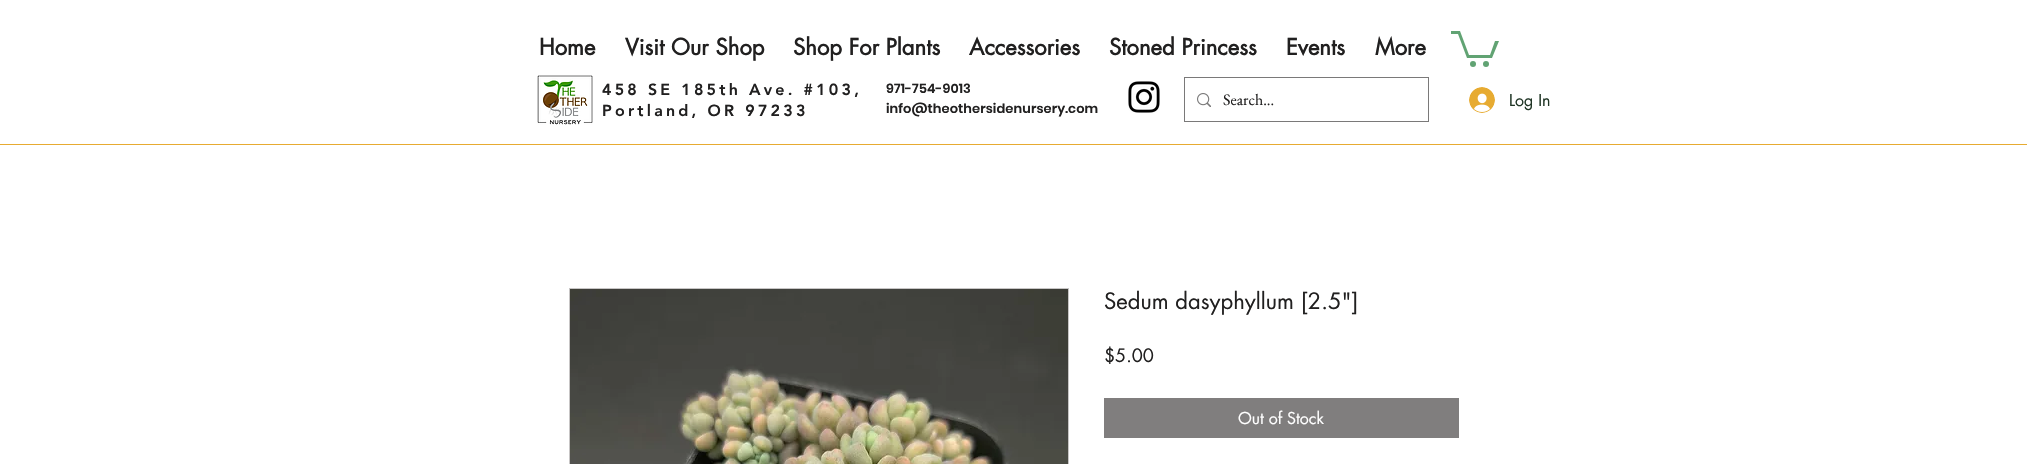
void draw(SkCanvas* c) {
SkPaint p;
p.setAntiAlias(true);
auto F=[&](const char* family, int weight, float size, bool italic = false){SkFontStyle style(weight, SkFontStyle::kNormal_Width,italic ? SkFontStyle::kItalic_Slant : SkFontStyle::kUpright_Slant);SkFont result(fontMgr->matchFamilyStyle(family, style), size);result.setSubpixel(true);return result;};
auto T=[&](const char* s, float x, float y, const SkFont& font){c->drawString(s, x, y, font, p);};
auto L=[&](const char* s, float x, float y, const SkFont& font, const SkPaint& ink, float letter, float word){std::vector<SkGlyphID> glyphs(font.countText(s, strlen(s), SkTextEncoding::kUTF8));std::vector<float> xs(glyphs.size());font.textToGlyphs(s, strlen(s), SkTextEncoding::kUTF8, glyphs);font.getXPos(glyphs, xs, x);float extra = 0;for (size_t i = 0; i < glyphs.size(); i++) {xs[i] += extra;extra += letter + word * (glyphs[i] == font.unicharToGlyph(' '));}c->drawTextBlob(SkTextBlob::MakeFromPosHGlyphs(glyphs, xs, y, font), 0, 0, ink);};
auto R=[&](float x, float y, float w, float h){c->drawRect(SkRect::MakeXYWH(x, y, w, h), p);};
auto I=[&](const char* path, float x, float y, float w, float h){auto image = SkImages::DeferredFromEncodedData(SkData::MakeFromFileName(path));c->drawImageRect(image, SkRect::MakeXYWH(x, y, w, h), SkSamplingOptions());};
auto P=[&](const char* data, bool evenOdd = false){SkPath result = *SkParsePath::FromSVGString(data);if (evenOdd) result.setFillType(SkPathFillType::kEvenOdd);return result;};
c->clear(0xffffffff);
auto f1 = F("futura",700,22);
p.setColor(0xff212020);
T("Home",539,55,f1);
T("Visit Our Shop",625,55,f1);
T("Shop For Plants",793,55,f1);
T("Accessories",969,55,f1);
T("Stoned Princess",1109,55,f1);
T("Events",1286,55,f1);
T("More",1375,55,f1);
p.setColor(0xff61a373);
c->drawPath(P("M1499 41l-7 17h-25l-9-24h-7v-3h9l9 24h21l5-14"),p);
c->drawCircle(1486,64,3,p);
c->drawCircle(1473,64,3,p);
I("1.png",537,75,56,50);
auto f2 = F("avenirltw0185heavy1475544",900,16);
p.setColor(0xff212020);
L("458 SE 185th Ave. #103,",602,95,f2,p,3.2,0);
L("Portland, OR 97233",602,116,f2,p,3.2,0);
auto f3 = F("Poppins",600,13);
L("971-754-9013",886,93,f3,p,.1,0);
L("info@theothersidenursery.com",886,113,f3,p,.1,0);
I("2.png",1128,81,32,32);
p.setStroke(true);
p.setStrokeWidth(1);
p.setColor(0xff7a7979);
c->drawRect(SkRect::MakeXYWH(1184.5,77.5,244,44),p);
I("3.png",1197,93,14,14);
auto f4 = F("EB Garamond",400,16);
p.setStroke(false);
p.setColor(0xff212020);
T("Search...",1223,105,f4);
I("4.png",1469,87,26,26);
auto f5 = F("futura",400,16);
p.setColor(0xff213626);
T("Log In",1509,106,f5);
p.setColor(0xffe7ab31);
R(0,144,2027,1);
p.setStroke(true);
p.setColor(0xffc7c5c5);
c->drawRect(SkRect::MakeXYWH(569.5,288.5,499,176),p);
I("5.png",570,289,498,175);
auto f6 = F("futura",400,22);
p.setStroke(false);
p.setColor(0xff212020);
T("Sedum dasyphyllum [2.5\"]",1104,309,f6);
auto f7 = F("futura",400,18);
T("$5.00",1104,362,f7);
p.setColor(0xff807e7e);
R(1104,398,355,40);
p.setColor(0xffffffff);
T("Out of Stock",1238,424,f5);
}
